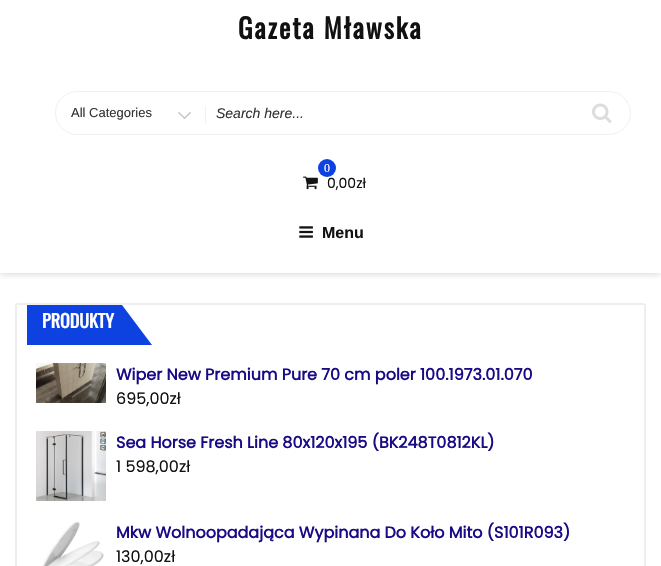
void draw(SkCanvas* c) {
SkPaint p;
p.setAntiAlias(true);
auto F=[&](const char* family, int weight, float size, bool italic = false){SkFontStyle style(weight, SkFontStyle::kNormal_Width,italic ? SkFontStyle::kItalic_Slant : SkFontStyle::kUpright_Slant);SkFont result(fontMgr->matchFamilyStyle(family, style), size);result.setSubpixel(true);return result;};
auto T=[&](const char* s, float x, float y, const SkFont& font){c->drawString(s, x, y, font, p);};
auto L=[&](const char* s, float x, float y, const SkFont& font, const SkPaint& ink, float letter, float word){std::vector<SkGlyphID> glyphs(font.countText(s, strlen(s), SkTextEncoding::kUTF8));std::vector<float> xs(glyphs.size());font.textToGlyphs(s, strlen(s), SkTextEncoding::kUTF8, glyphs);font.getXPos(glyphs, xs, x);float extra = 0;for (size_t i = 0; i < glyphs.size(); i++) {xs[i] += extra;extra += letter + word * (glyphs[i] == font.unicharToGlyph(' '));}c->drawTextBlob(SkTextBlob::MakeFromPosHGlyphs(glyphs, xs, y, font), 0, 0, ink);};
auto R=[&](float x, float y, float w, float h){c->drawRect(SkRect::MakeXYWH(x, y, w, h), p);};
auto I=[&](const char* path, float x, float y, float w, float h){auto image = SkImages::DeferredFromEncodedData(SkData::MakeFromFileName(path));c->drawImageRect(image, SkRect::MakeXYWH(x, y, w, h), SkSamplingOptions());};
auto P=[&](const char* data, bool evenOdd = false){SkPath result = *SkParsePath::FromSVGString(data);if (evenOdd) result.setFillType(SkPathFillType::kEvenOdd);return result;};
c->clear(0xffffffff);
c->save();
c->clipRect(SkRect::MakeXYWH(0,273,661,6));
p.setColor(0x476a6a6a);
p.setMaskFilter(SkMaskFilter::MakeBlur(kNormal_SkBlurStyle, 3.5));
c->drawRect(SkRect::MakeXYWH(0,1,661,273),p);
p.setMaskFilter(nullptr);
c->restore();
auto f1 = F("Oswald",700,27.25);
p.setColor(0xff111111);
L("Gazeta Mławska",238,39,f1,p,1.9,0);
p.setStroke(true);
p.setStrokeWidth(1);
p.setColor(0xfff0f0f0);
c->drawRoundRect(SkRect::MakeXYWH(55.5,91.5,575,43),21.5,21.5,p);
I("1.png",178,112,13,7);
auto f2 = F("Liberation Sans",400,13);
p.setStroke(false);
p.setColor(0xff333333);
T("All Categories",71,117,f2);
p.setColor(0xfff0f0f0);
R(205,106,1,18);
auto f3 = F("Liberation Sans",400,14,true);
p.setColor(0xff333333);
T("Search here...",216,118,f3);
I("2.png",592,103,20,20);
p.setColor(0xff0d42e1);
c->drawCircle(327,168,9,p);
auto f4 = F("Liberation Serif",400,12);
p.setColor(0xffffffff);
T("0",324,172,f4);
I("3.png",303,176,15,14);
auto f5 = F("Poppins",400,14);
p.setColor(0xff111111);
T("0,00zł",327,188,f5);
I("4.png",299,226,14,12);
auto f6 = F("Liberation Sans",700,16);
T("Menu",322,238,f6);
p.setStroke(true);
p.setStrokeWidth(2);
p.setColor(0xffeeeeee);
c->drawRoundRect(SkRect::MakeXYWH(16,304,629,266),2,2,p);
p.setStroke(false);
p.setColor(0xff0d42e1);
R(27,305,95,40);
auto f7 = F("Oswald",700,18);
p.setColor(0xffffffff);
T("PRODUKTY",42,328,f7);
p.setColor(0xff0d42e1);
c->drawPath(P("M122 345v-40l30 40z"),p);
I("5.png",36,363,70,40);
auto f8 = F("Poppins",700,16);
p.setColor(0xff190a85);
T("Wiper New Premium Pure 70 cm poler 100.1973.01.070",116,380,f8);
auto f9 = F("Poppins",400,16);
p.setColor(0xff111111);
T("695,00zł",116,404,f9);
I("6.png",36,431,70,70);
p.setColor(0xff190a85);
T("Sea Horse Fresh Line 80x120x195 (BK248T0812KL)",116,448,f8);
p.setColor(0xff111111);
T("1 598,00zł",116,472,f9);
I("7.png",42,521,62,45);
p.setColor(0xff190a85);
T("Mkw Wolnoopadająca Wypinana Do Koło Mito (S101R093)",116,538,f8);
p.setColor(0xff111111);
T("130,00zł",116,562,f9);
}
